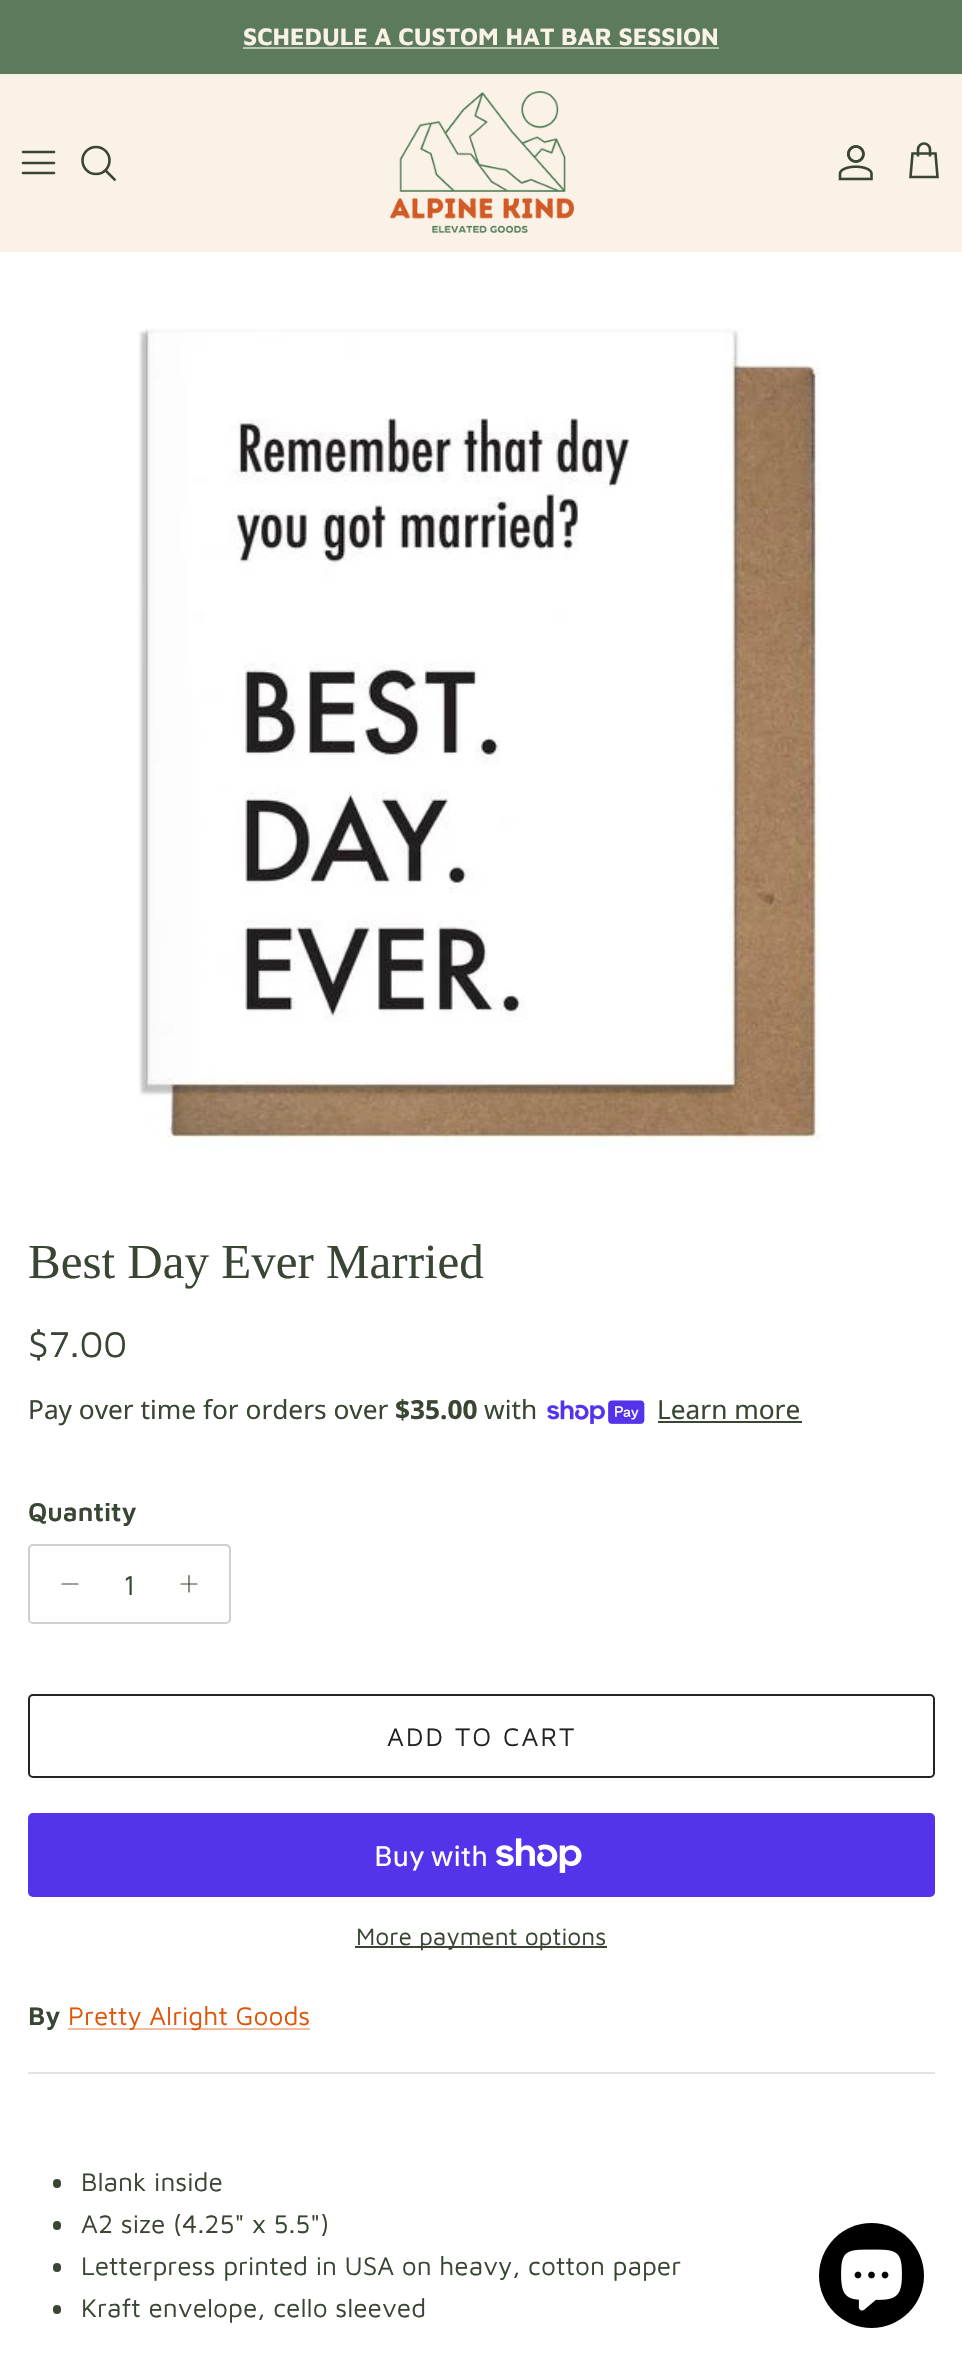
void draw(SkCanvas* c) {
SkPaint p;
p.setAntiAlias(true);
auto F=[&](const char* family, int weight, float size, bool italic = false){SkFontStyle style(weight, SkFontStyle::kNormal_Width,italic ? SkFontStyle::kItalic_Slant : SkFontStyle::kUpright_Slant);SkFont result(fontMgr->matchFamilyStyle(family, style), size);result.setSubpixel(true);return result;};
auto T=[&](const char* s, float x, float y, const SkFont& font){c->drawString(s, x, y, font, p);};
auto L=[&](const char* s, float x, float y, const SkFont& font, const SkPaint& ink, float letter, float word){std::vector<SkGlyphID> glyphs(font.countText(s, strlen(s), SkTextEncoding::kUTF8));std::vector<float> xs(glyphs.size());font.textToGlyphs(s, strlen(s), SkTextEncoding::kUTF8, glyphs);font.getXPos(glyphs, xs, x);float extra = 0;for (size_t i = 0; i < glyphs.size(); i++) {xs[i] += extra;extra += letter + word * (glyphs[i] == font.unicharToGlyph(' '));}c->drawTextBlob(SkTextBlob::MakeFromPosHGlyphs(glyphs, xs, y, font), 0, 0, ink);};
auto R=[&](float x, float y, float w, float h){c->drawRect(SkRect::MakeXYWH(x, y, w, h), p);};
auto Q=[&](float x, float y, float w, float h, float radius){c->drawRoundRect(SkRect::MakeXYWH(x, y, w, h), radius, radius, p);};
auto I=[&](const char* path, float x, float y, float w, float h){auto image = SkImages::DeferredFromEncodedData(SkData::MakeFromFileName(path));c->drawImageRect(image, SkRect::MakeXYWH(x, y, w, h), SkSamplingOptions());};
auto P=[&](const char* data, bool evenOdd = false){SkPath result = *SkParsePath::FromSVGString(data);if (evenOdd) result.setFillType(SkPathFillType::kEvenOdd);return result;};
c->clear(0xffffffff);
p.setColor(0xff5c7b5c);
R(0,0,962,74);
auto f1 = F("Maven Pro",700,24.5);
p.setColor(0xfffaf2e6);
T("SCHEDULE A CUSTOM HAT BAR SESSION",243,45,f1);
p.setColor(0xffbbc2af);
R(243,47,476,2);
p.setColor(0xfffaf2e6);
R(0,74,962,178);
p.setStroke(true);
p.setStrokeWidth(2.6);
p.setStrokeCap(SkPaint::kRound_Cap);
p.setStrokeJoin(SkPaint::kRound_Join);
p.setColor(0xff384633);
c->drawPath(P("M23 163h31m-31-11h31m-31 21h31"),p);
p.setStrokeCap(SkPaint::kButt_Cap);
p.setStrokeJoin(SkPaint::kMiter_Join);
c->drawCircle(96,160.5,13.5,p);
p.setStrokeCap(SkPaint::kSquare_Cap);
c->drawPath(P("M106.5 171.5l8 8"),p);
I("1.png",390,91,184,142);
I("2.png",838,145,35,36);
p.setStrokeCap(SkPaint::kButt_Cap);
c->drawPath(P("M930 156.5v-7c0-3.5-3-6-6-6c-3 0-6 2.5-6 6v7m-5.5-3h23l2 23.5h-27z"),p);
I("3.png",138,328,684,822);
auto f2 = F("Liberation Serif",400,49);
p.setStroke(false);
T("Best Day Ever Married",28,1278,f2);
auto f3 = F("Maven Pro",400,37);
T("$7.00",28,1357,f3);
auto f4 = F("Noto Sans",400,26.25);
T("Pay over time for orders over",28,1419,f4);
auto f5 = F("Noto Sans",700,26.25);
T("$35.00",395,1419,f5);
T("with",484,1419,f4);
I("4.png",547,1400,98,24);
T("Learn more",657,1419,f4);
R(658,1421,144,2);
auto f6 = F("Maven Pro",600,26.25);
T("Quantity",28,1521,f6);
p.setStroke(true);
p.setStrokeWidth(2);
p.setColor(0xffcdd1cc);
c->drawRoundRect(SkRect::MakeXYWH(29,1545,201,78),4,4,p);
p.setStrokeWidth(1.2);
p.setStrokeCap(SkPaint::kRound_Cap);
p.setStrokeJoin(SkPaint::kRound_Join);
p.setColor(0xff384633);
c->drawPath(P("M62 1584h16"),p);
auto f7 = F("Maven Pro",400,28);
p.setStroke(false);
T("1",123,1595,f7);
p.setStroke(true);
c->drawPath(P("M189 1575.5v16.5m-8-8h16"),p);
p.setStrokeWidth(2);
p.setStrokeCap(SkPaint::kButt_Cap);
p.setStrokeJoin(SkPaint::kMiter_Join);
p.setColor(0xff232323);
c->drawRoundRect(SkRect::MakeXYWH(29,1695,905,82),4,4,p);
auto f8 = F("Maven Pro",400,26.25);
p.setStroke(false);
L("ADD TO CART",387,1746,f8,p,2.1,0);
p.setColor(0xff5433eb);
Q(28,1813,907,84,5);
auto f9 = F("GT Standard",400,28);
p.setColor(0xffffffff);
T("Buy with",374,1866,f9);
I("5.png",496,1838,86,35);
p.setColor(0xff384633);
R(355,1946,252,2);
auto f10 = F("Maven Pro",400,24.5);
T("More payment options",356,1945,f10);
T("By",28,2025,f6);
p.setColor(0xfff1bb9d);
R(68,2028,242,2);
p.setColor(0xffdd560a);
T("Pretty Alright Goods",68,2025,f8);
p.setColor(0xffe3e5e2);
R(28,2072,907,2);
p.setColor(0xff384633);
Q(53,2179,8,9,4);
T("Blank inside",81,2191,f8);
Q(53,2221,8,9,4);
T("A2 size (4.25\" x 5.5\")",81,2233,f8);
Q(53,2263,8,9,4);
T("Letterpress printed in USA on heavy, cotton paper",81,2275,f8);
Q(53,2305,8,9,4);
T("Kraft envelope, cello sleeved",81,2317,f8);
p.setColor(0xff000000);
c->drawCircle(871.5,2275.5,52.5,p);
I("6.png",841,2249,61,62);
}
